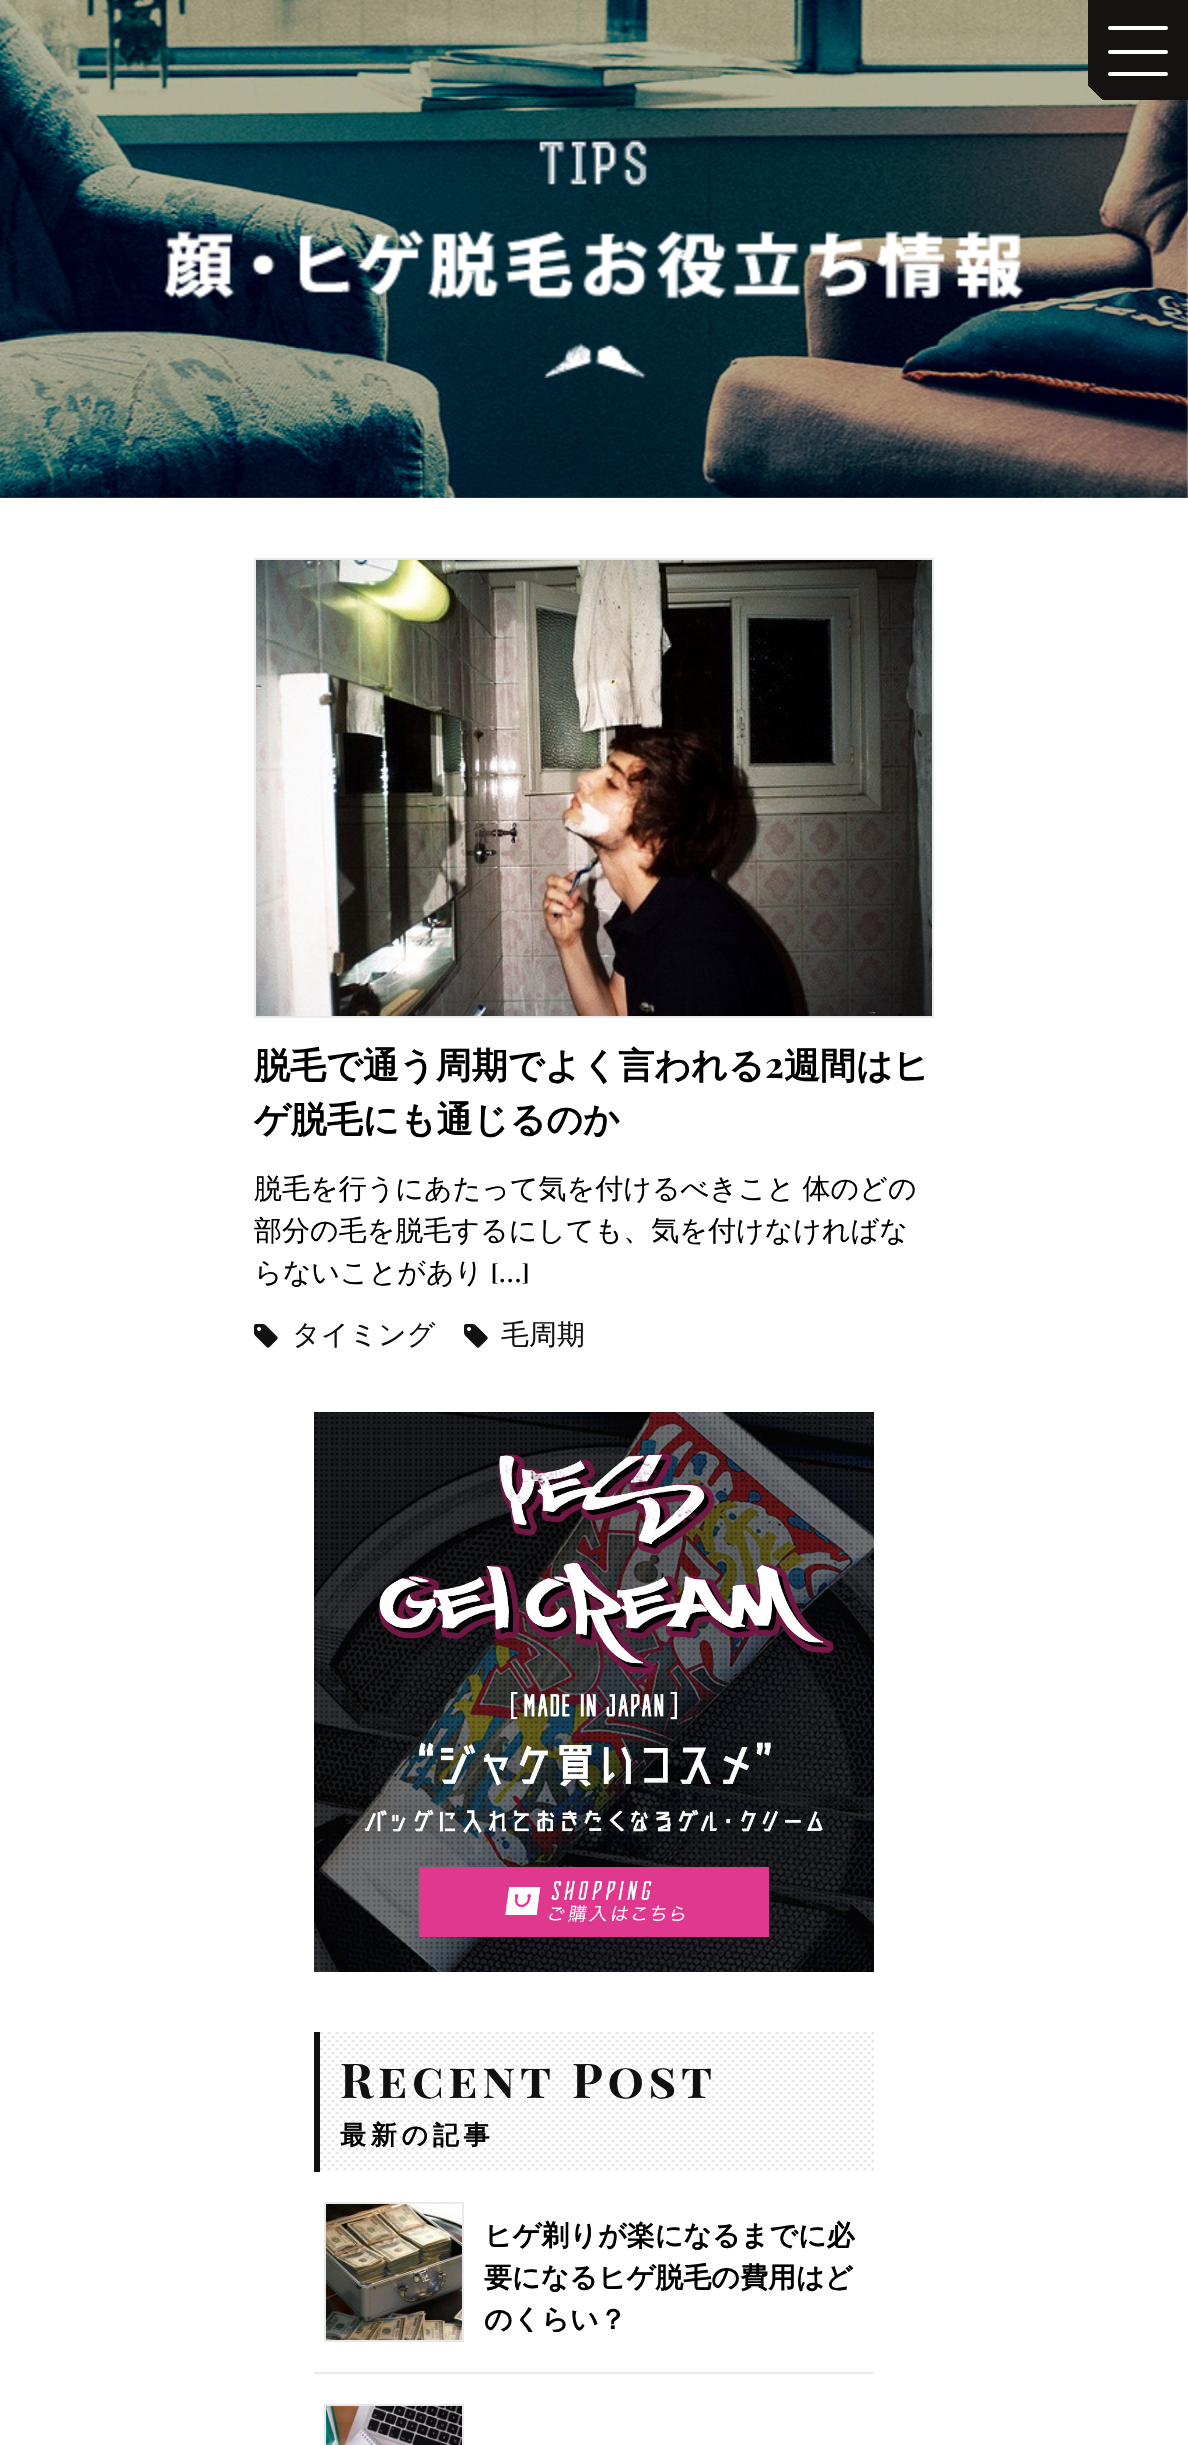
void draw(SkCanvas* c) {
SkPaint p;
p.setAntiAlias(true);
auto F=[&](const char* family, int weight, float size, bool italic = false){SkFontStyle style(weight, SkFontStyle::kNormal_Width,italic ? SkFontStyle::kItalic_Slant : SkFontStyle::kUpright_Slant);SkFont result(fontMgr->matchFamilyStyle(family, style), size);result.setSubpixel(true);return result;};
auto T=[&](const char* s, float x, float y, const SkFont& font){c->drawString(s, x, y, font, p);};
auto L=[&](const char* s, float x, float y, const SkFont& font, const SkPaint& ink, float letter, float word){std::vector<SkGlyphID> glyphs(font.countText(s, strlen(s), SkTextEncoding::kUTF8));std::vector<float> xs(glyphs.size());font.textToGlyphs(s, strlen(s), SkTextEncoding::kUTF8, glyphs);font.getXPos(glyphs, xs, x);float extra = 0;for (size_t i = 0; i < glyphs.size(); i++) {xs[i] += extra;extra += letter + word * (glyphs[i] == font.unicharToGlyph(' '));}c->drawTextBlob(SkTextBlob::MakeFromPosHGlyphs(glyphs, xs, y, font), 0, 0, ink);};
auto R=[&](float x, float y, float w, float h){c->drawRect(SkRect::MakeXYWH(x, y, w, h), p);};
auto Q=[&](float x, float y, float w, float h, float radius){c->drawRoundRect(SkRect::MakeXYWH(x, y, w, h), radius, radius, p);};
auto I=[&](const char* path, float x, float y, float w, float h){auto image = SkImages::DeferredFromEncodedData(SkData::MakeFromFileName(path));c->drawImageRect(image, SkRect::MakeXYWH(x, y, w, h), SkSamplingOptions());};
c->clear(0xfff5f5f5);
I("1.png",0,0,1188,498);
{
const SkColor colors[] = {0xff141312,0x00141312};
const float stops[] = {.93,.93};
const SkPoint ends[] = {{1188,0}, {1088,100}};
p.setShader(SkGradientShader::MakeLinear(ends, colors, stops, 2, SkTileMode::kClamp));
p.setAlpha(255);
}
R(1088,0,100,100);
p.setShader(nullptr);
p.setColor(0xffffffff);
Q(1108,26,60,4,2);
Q(1108,50,60,4,2);
Q(1108,72,60,4,2);
I("2.png",164,140,860,238);
R(0,498,1188,1947);
p.setStroke(true);
p.setStrokeWidth(2);
p.setColor(0xffe9e9e9);
c->drawRect(SkRect::MakeXYWH(255,559,678,458),p);
I("3.png",256,560,676,456);
auto f1 = F("WenQuanYi Zen Hei",700,36);
p.setStroke(false);
p.setColor(0xff000000);
T("脱毛で通う周期でよく言われる",254,1078,f1);
auto f2 = F("Playfair Display SC",700,36);
T("2",765,1078,f2);
T("週間はヒ",784,1078,f1);
T("ゲ脱毛にも通じるのか",254,1132,f1);
auto f3 = F("WenQuanYi Zen Hei",500,28);
L("脱毛を行うにあたって気を付けるべきこと 体のどの",254,1198,f3,p,0,-1);
T("部分の毛を脱毛するにしても、気を付けなければな",254,1240,f3);
T("らないことがあり",254,1282,f3);
auto f4 = F("Playfair Display SC",400,28);
T("[…]",490,1282,f4);
I("4.png",254,1324,24,24);
p.setColor(0xff111111);
T("タイミング",292,1344,f3);
I("4.png",464,1324,24,24);
T("毛周期",501,1344,f3);
I("5.png",314,1412,560,560);
I("6.png",320,2032,554,140);
R(314,2032,6,140);
auto f5 = F("Playfair Display SC",700,48);
L("Recent Post",340,2098,f5,p,4.75,0);
auto f6 = F("WenQuanYi Zen Hei",700,26);
p.setColor(0xff000000);
L("最新の記事",340,2144,f6,p,4.75,0);
p.setColor(0xffe9e9e9);
R(314,2372,560,2);
p.setStroke(true);
c->drawRect(SkRect::MakeXYWH(325,2203,138,138),p);
I("7.png",326,2204,136,136);
auto f7 = F("WenQuanYi Zen Hei",700,28);
p.setStroke(false);
p.setColor(0xff000000);
T("ヒゲ剃りが楽になるまでに必",484,2245,f7);
T("要になるヒゲ脱毛の費用はど",484,2287,f7);
c->save();
c->clipRect(SkRect::MakeXYWH(484,2212,380,120));
T("のくらい？",484,2329,f7);
c->restore();
p.setStroke(true);
p.setColor(0xffe9e9e9);
c->drawRect(SkRect::MakeXYWH(325,2405,138,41),p);
I("8.png",326,2406,136,39);
}
